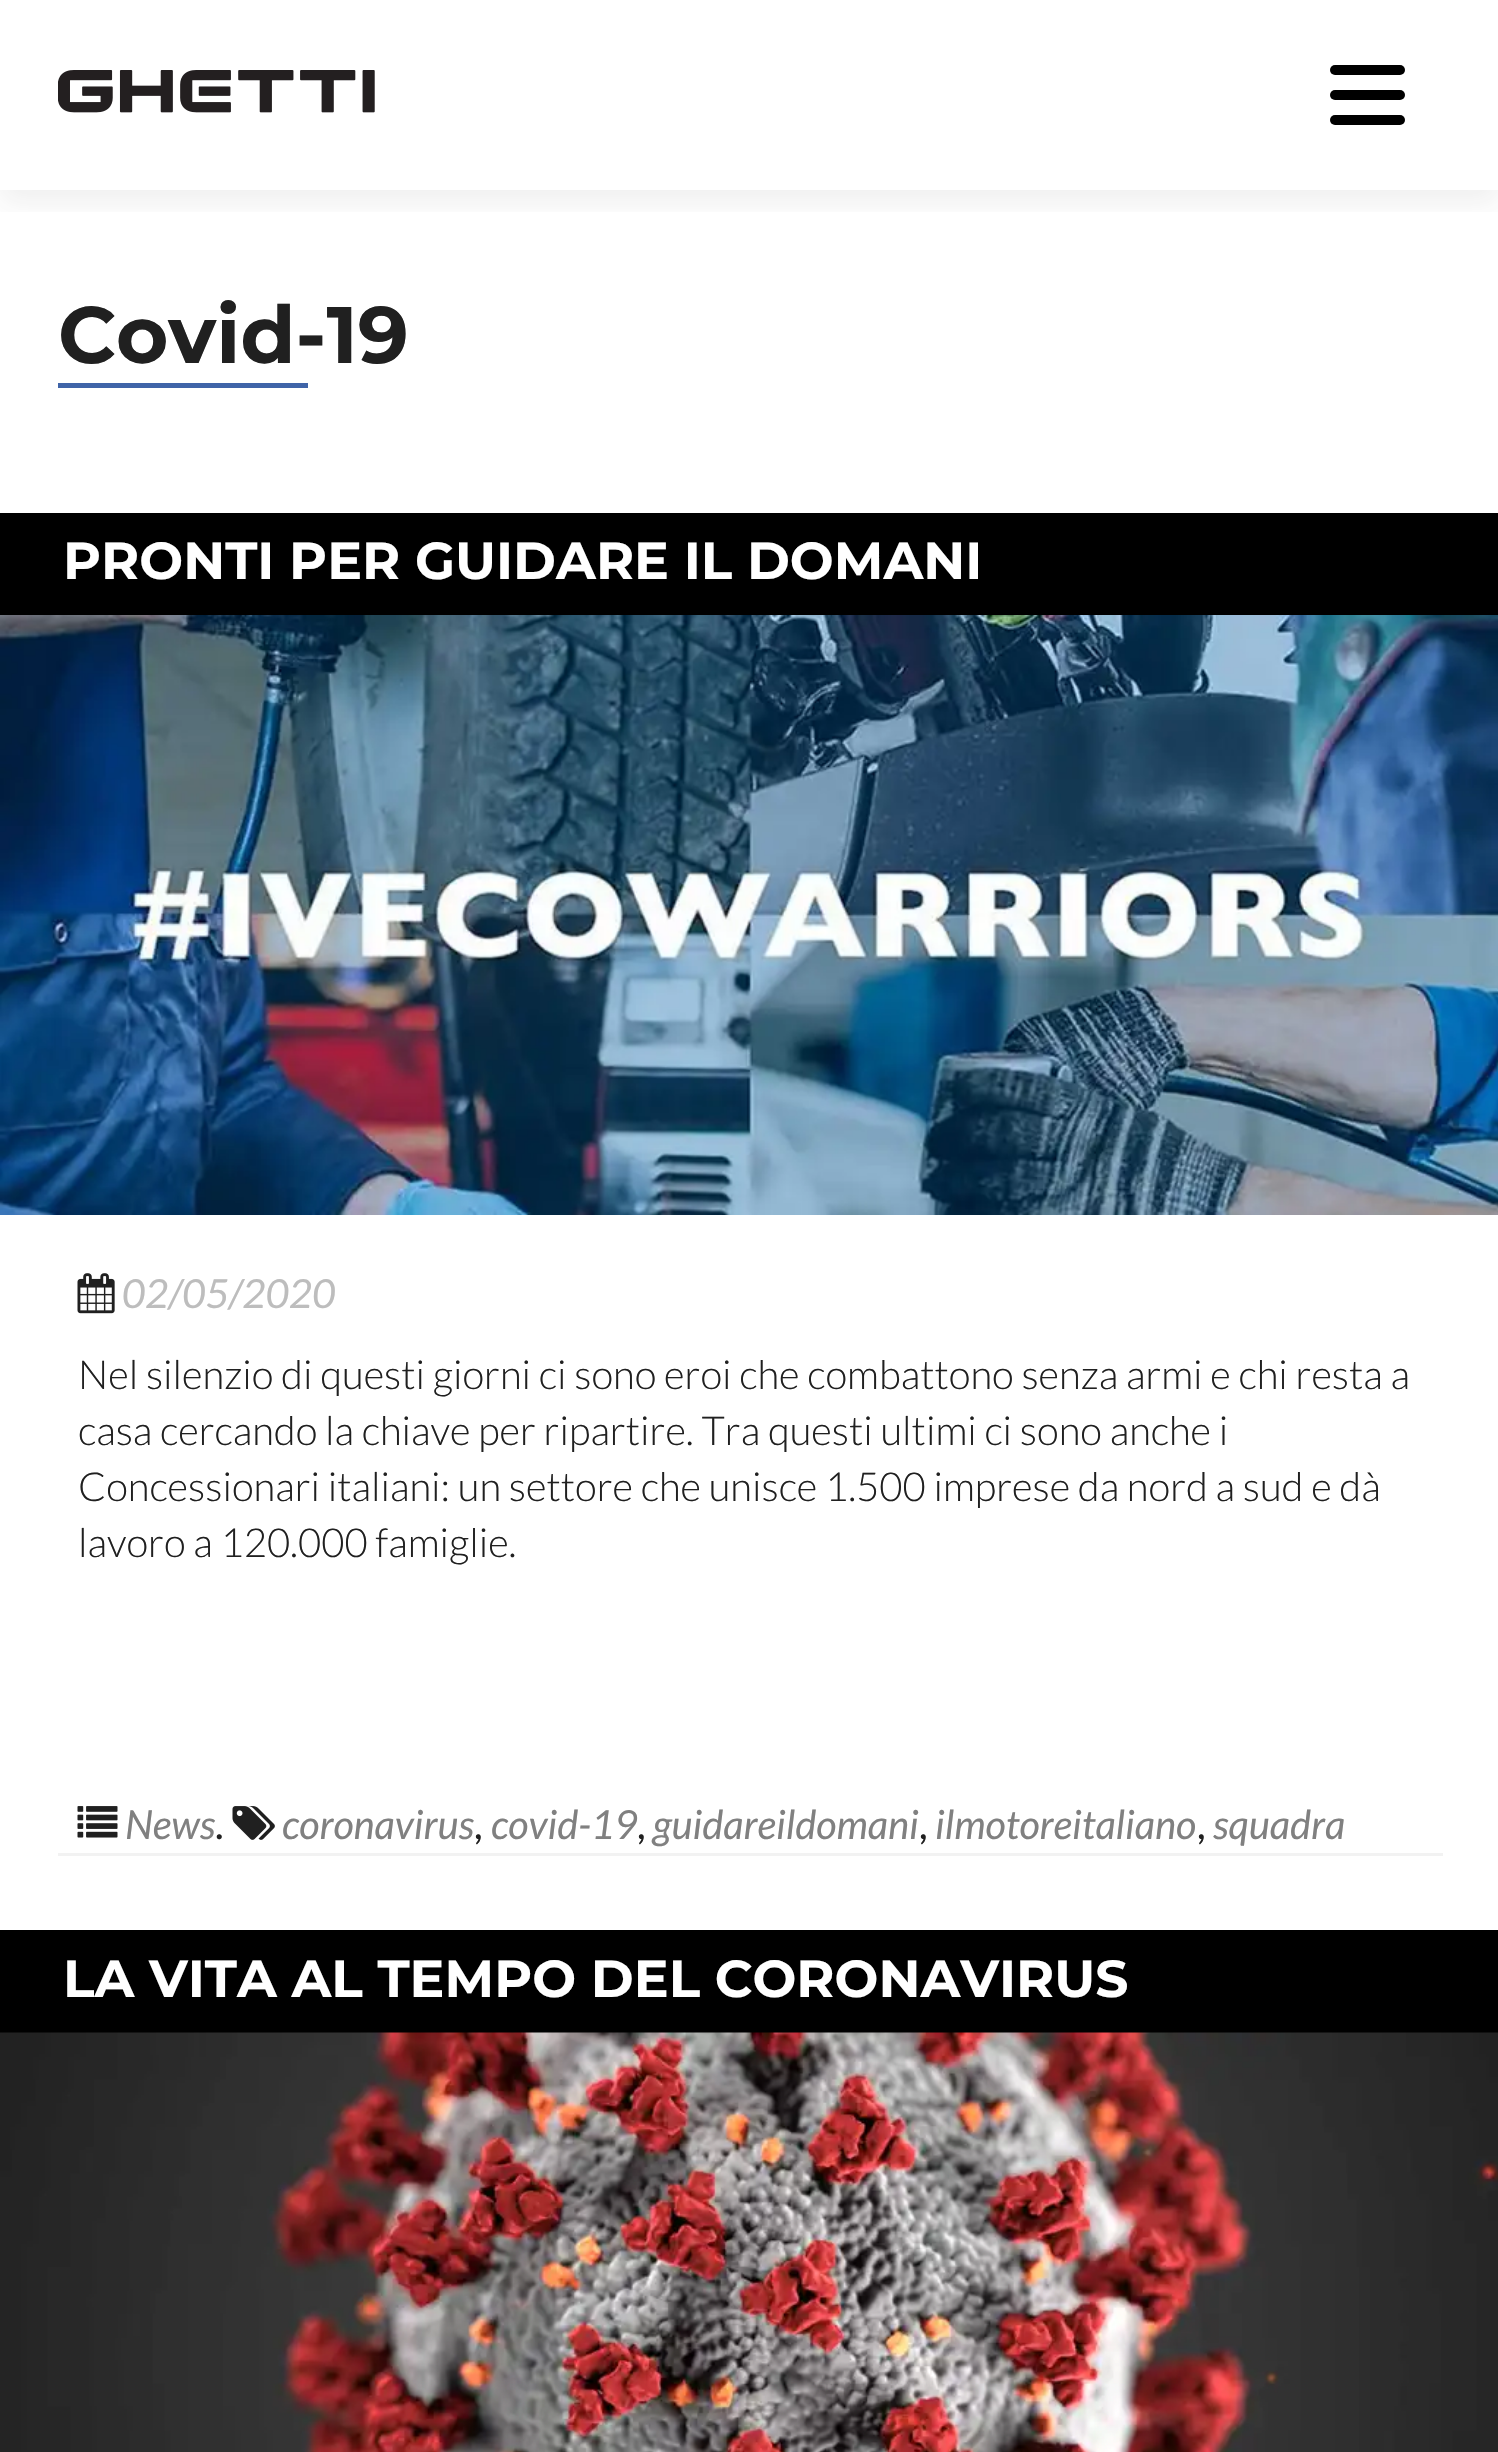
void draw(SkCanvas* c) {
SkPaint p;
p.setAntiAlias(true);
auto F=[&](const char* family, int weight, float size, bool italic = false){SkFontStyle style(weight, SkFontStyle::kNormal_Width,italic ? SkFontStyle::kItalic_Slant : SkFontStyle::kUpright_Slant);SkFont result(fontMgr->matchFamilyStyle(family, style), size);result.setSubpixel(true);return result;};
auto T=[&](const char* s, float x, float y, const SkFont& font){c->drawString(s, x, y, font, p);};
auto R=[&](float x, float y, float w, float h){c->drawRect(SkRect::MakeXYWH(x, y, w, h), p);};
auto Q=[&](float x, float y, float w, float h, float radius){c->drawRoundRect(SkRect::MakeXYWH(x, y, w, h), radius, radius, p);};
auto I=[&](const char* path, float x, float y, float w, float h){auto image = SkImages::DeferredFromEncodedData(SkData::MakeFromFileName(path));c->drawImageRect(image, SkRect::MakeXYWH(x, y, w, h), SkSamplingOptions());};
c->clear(0xffffffff);
c->save();
c->clipRect(SkRect::MakeXYWH(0,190,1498,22));
p.setColor(0x14323232);
p.setMaskFilter(SkMaskFilter::MakeBlur(kNormal_SkBlurStyle, 14));
c->drawRect(SkRect::MakeXYWH(0,13,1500,190),p);
p.setMaskFilter(nullptr);
c->restore();
I("1.png",58,70,317,43);
p.setColor(0xff000000);
Q(1330,115,75,10,5);
Q(1330,65,75,10,5);
Q(1330,90,75,10,5);
auto f1 = F("Montserrat",100,80);
p.setColor(0xff202020);
T("Covid-19",58,363,f1);
p.setColor(0xff3f64a8);
R(58,383,250,5);
p.setColor(0xfff2f2f2);
R(58,1853,1385,3);
p.setColor(0xff000000);
R(0,513,1498,102);
auto f2 = F("Montserrat",100,52);
p.setColor(0xffffffff);
T("PRONTI PER GUIDARE IL DOMANI",63,579,f2);
I("2.png",0,615,1498,600);
I("3.png",77,1273,38,41);
auto f3 = F("Lato",400,40,true);
p.setColor(0xffbdbdbd);
T("02/05/2020",122,1308,f3);
auto f4 = F("Lato",300,40);
p.setColor(0xff202020);
T("Nel silenzio di questi giorni ci sono eroi che combattono senza armi e chi resta a",78,1389,f4);
T("casa cercando la chiave per ripartire. Tra questi ultimi ci sono anche i",78,1445,f4);
T("Concessionari italiani: un settore che unisce 1.500 imprese da nord a sud e dà",78,1501,f4);
T("lavoro a 120.000 famiglie.",78,1557,f4);
I("4.png",77,1806,41,32);
p.setColor(0xff808080);
T("News",125,1839,f3);
auto f5 = F("Lato",400,40);
p.setColor(0xff202020);
T(".",215,1839,f5);
I("5.png",232,1806,43,34);
p.setColor(0xff808080);
T("coronavirus",282,1839,f3);
p.setColor(0xff202020);
T(",",474,1839,f5);
p.setColor(0xff808080);
T("covid-19",491,1839,f3);
p.setColor(0xff202020);
T(",",637,1839,f5);
p.setColor(0xff808080);
T("guidareildomani",653,1839,f3);
p.setColor(0xff202020);
T(",",919,1839,f5);
p.setColor(0xff808080);
T("ilmotoreitaliano",935,1839,f3);
p.setColor(0xff202020);
T(",",1197,1839,f5);
p.setColor(0xff808080);
T("squadra",1213,1839,f3);
p.setColor(0xff000000);
R(0,1930,1498,103);
p.setColor(0xffffffff);
T("LA VITA AL TEMPO DEL CORONAVIRUS",63,1997,f2);
I("6.png",0,2032,1498,420);
}
